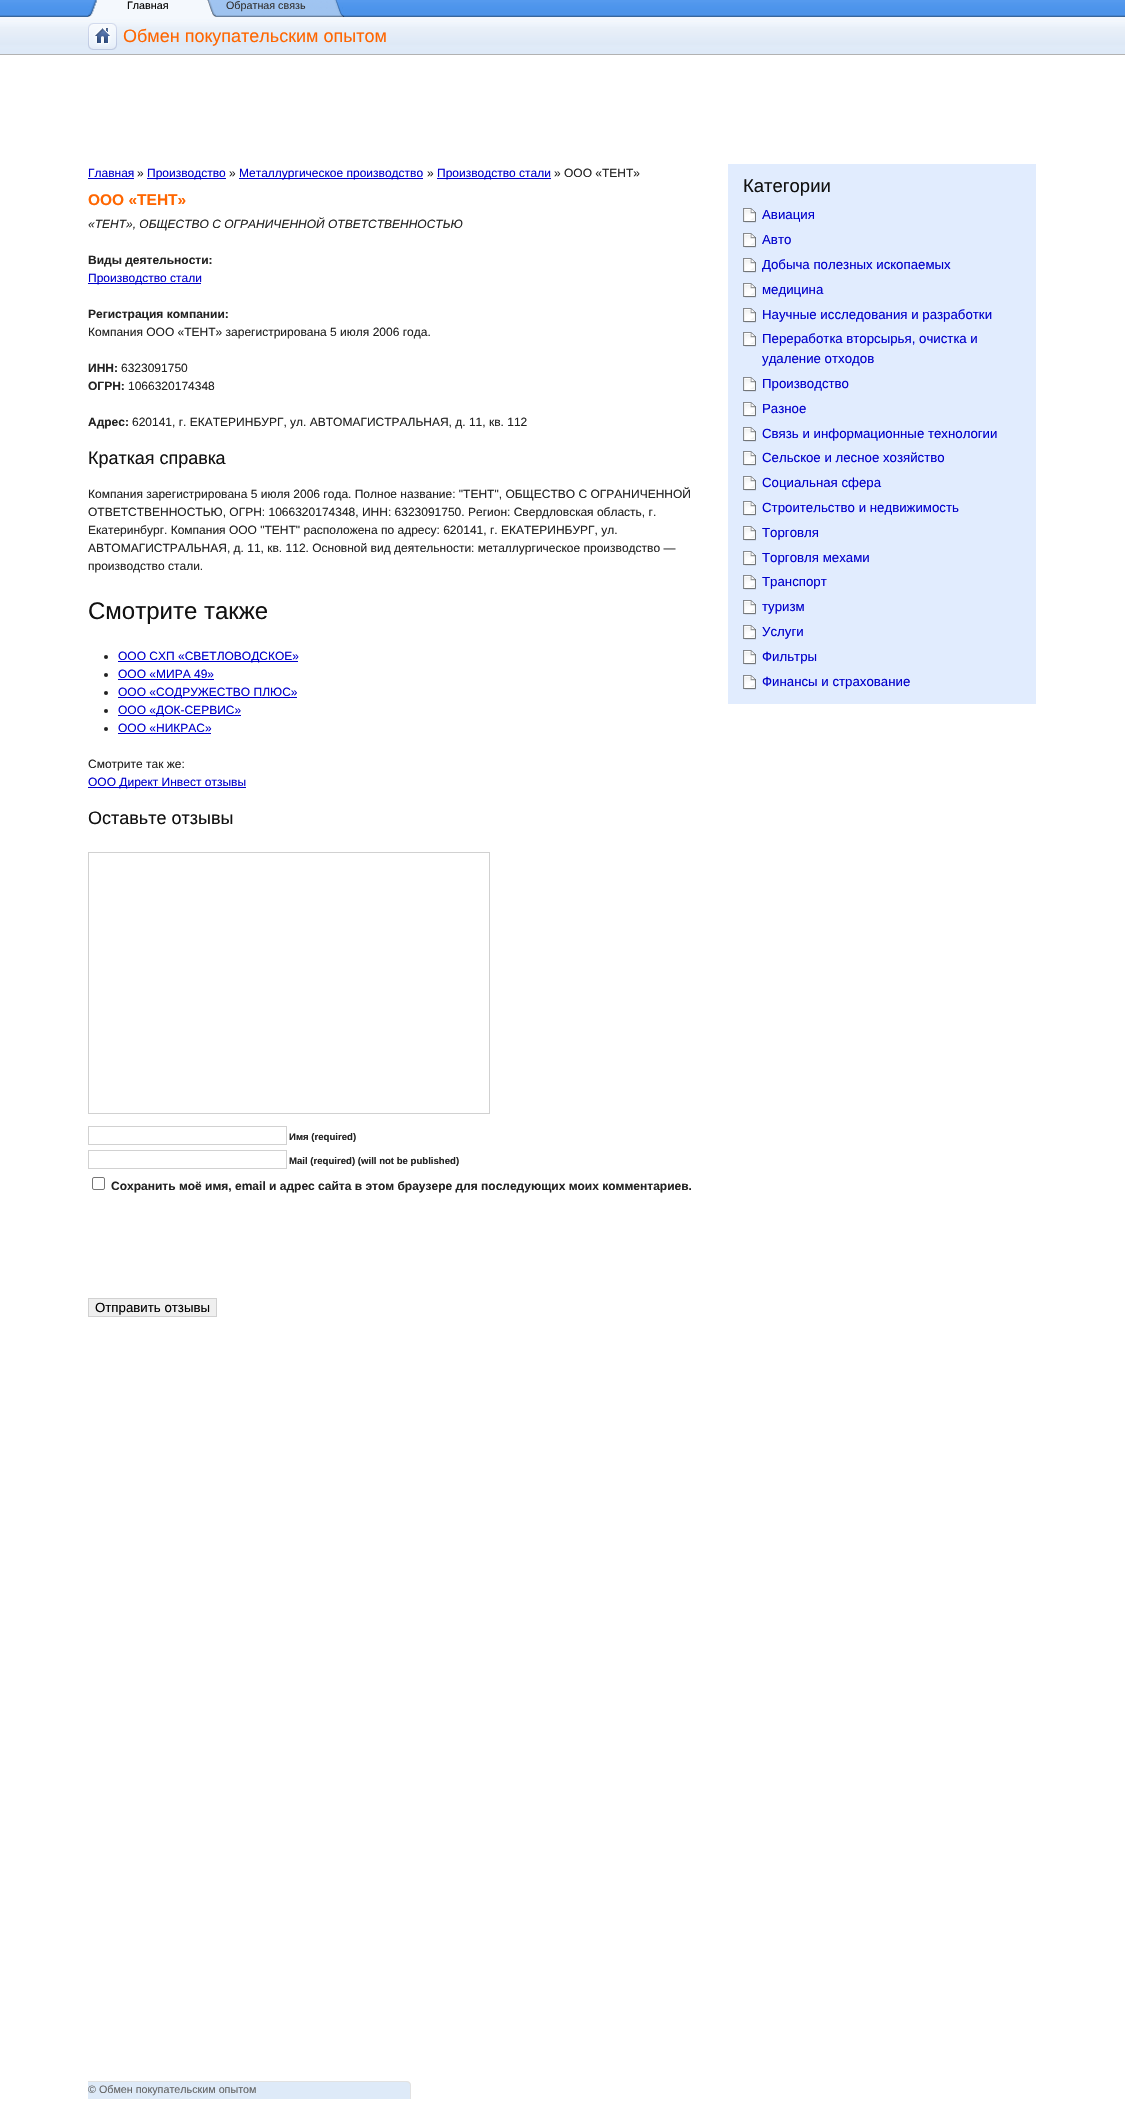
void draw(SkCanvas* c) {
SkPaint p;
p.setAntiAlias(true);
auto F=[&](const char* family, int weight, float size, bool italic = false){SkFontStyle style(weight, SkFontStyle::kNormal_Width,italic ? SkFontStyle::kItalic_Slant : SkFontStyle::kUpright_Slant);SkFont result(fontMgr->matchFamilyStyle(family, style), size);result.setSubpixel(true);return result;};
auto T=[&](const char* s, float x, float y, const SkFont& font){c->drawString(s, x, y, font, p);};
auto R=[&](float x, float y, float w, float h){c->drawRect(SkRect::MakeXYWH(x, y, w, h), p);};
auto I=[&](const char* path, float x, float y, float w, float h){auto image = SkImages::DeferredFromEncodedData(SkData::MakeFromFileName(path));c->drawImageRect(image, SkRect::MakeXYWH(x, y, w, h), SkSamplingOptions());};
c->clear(0xffffffff);
I("1.png",0,0,1125,55);
p.setColor(0xfff4f8fd);
R(97,0,110,17);
I("2.png",207,0,9,17);
I("3.png",88,0,9,17);
auto f1 = F("Liberation Sans",400,10.75);
p.setColor(0xff000000);
T("Главная",127,9,f1);
I("4.png",216,0,129,17);
p.setColor(0xff333333);
T("Обратная связь",226,9,f1);
I("5.png",88,23,29,27);
auto f2 = F("Liberation Sans",400,18);
p.setColor(0xffff6600);
T("Обмен покупательским опытом",123,42,f2);
auto f3 = F("Liberation Sans",400,12);
p.setColor(0xff0000cc);
T("Главная",88,177,f3);
R(88,178,46,1);
p.setColor(0xff222222);
T("»",137,177,f3);
p.setColor(0xff0000cc);
R(147,178,79,1);
T("Производство",147,177,f3);
p.setColor(0xff222222);
T("»",229,177,f3);
p.setColor(0xff0000cc);
R(239,178,184,1);
T("Металлургическое производство",239,177,f3);
p.setColor(0xff222222);
T("»",427,177,f3);
p.setColor(0xff0000cc);
R(437,178,114,1);
T("Производство стали",437,177,f3);
p.setColor(0xff222222);
T("» ООО «ТЕНТ»",554,177,f3);
auto f4 = F("Liberation Sans",700,15.5);
p.setColor(0xffff6600);
T("ООО «ТЕНТ»",88,205,f4);
auto f5 = F("Liberation Sans",400,12,true);
p.setColor(0xff222222);
T("«ТЕНТ», ОБЩЕСТВО С ОГРАНИЧЕННОЙ ОТВЕТСТВЕННОСТЬЮ",88,228,f5);
auto f6 = F("Liberation Sans",700,12);
T("Виды деятельности:",88,264,f6);
p.setColor(0xff0000cc);
R(88,283,113,1);
T("Производство стали",88,282,f3);
p.setColor(0xff222222);
T("Регистрация компании:",88,318,f6);
T("Компания ООО «ТЕНТ» зарегистрирована 5 июля 2006 года.",88,336,f3);
T("ИНН:",88,372,f6);
T("6323091750",121,372,f3);
T("ОГРН:",88,390,f6);
T("1066320174348",128,390,f3);
T("Адрес:",88,426,f6);
T("620141, г. ЕКАТЕРИНБУРГ, ул. АВТОМАГИСТРАЛЬНАЯ, д. 11, кв. 112",132,426,f3);
p.setColor(0xff111111);
T("Краткая справка",88,464,f2);
p.setColor(0xff222222);
T("Компания зарегистрирована 5 июля 2006 года. Полное название: \"ТЕНТ\", ОБЩЕСТВО С ОГРАНИЧЕННОЙ",88,498,f3);
T("ОТВЕТСТВЕННОСТЬЮ, ОГРН: 1066320174348, ИНН: 6323091750. Регион: Свердловская область, г.",88,516,f3);
T("Екатеринбург. Компания ООО \"ТЕНТ\" расположена по адресу: 620141, г. ЕКАТЕРИНБУРГ, ул.",88,534,f3);
T("АВТОМАГИСТРАЛЬНАЯ, д. 11, кв. 112. Основной вид деятельности: металлургическое производство —",88,552,f3);
T("производство стали.",88,570,f3);
auto f7 = F("Liberation Sans",400,24);
p.setColor(0xff111111);
T("Смотрите также",88,619,f7);
p.setColor(0xff222222);
c->drawCircle(106,657,2,p);
p.setColor(0xff0000cc);
R(118,661,180,1);
T("ООО СХП «СВЕТЛОВОДСКОЕ»",118,660,f3);
p.setColor(0xff222222);
c->drawCircle(106,675,2,p);
p.setColor(0xff0000cc);
T("ООО «МИРА 49»",118,678,f3);
R(118,679,96,1);
p.setColor(0xff222222);
c->drawCircle(106,693,2,p);
p.setColor(0xff0000cc);
R(118,697,179,1);
T("ООО «СОДРУЖЕСТВО ПЛЮС»",118,696,f3);
p.setColor(0xff222222);
c->drawCircle(106,711,2,p);
p.setColor(0xff0000cc);
R(118,715,123,1);
T("ООО «ДОК-СЕРВИС»",118,714,f3);
p.setColor(0xff222222);
c->drawCircle(106,729,2,p);
p.setColor(0xff0000cc);
T("ООО «НИКРАС»",118,732,f3);
R(118,733,93,1);
p.setColor(0xff222222);
T("Смотрите так же:",88,768,f3);
p.setColor(0xff0000cc);
R(88,787,158,1);
T("ООО Директ Инвест отзывы",88,786,f3);
p.setColor(0xff111111);
T("Оставьте отзывы",88,824,f2);
p.setStroke(true);
p.setStrokeWidth(1);
p.setColor(0xffd1d1d1);
c->drawRect(SkRect::MakeXYWH(88.5,852.5,401,261),p);
c->drawRect(SkRect::MakeXYWH(88.5,1126.5,198,18),p);
auto f8 = F("Liberation Sans",700,9.6);
p.setStroke(false);
p.setColor(0xff222222);
T("Имя (required)",289,1140,f8);
p.setStroke(true);
p.setColor(0xffd1d1d1);
c->drawRect(SkRect::MakeXYWH(88.5,1150.5,198,18),p);
p.setStroke(false);
p.setColor(0xff222222);
T("Mail (required) (will not be published)",289,1164,f8);
p.setStroke(true);
p.setColor(0xff767676);
c->drawRoundRect(SkRect::MakeXYWH(92.5,1177.5,12,12),1.5,1.5,p);
p.setStroke(false);
p.setColor(0xff222222);
T("Сохранить моё имя, email и адрес сайта в этом браузере для последующих моих комментариев.",111,1190,f6);
p.setColor(0xffefefef);
c->drawRect(SkRect::MakeXYWH(88.5,1298.5,128,18),p);
p.setStroke(true);
p.setColor(0xffd1d1d1);
c->drawRect(SkRect::MakeXYWH(88.5,1298.5,128,18),p);
auto f9 = F("Liberation Sans",400,13.25);
p.setStroke(false);
p.setColor(0xff000000);
T("Отправить отзывы",95,1312,f9);
p.setColor(0xffe1ecfe);
R(728,164,308,540);
auto f10 = F("Liberation Sans",400,18.5);
p.setColor(0xff111111);
T("Категории",743,192,f10);
I("6.png",743,208,13,15);
p.setColor(0xff0000cc);
T("Авиация",762,219,f9);
I("6.png",743,233,13,15);
T("Авто",762,244,f9);
I("6.png",743,258,13,15);
T("Добыча полезных ископаемых",762,269,f9);
I("6.png",743,283,13,15);
T("медицина",762,294,f9);
I("6.png",743,308,13,15);
T("Научные исследования и разработки",762,319,f9);
I("6.png",743,332,13,15);
T("Переработка вторсырья, очистка и",762,343,f9);
T("удаление отходов",762,363,f9);
I("6.png",743,377,13,15);
T("Производство",762,388,f9);
I("6.png",743,402,13,15);
T("Разное",762,413,f9);
I("6.png",743,427,13,15);
T("Связь и информационные технологии",762,438,f9);
I("6.png",743,451,13,15);
T("Сельское и лесное хозяйство",762,462,f9);
I("6.png",743,476,13,15);
T("Социальная сфера",762,487,f9);
I("6.png",743,501,13,15);
T("Строительство и недвижимость",762,512,f9);
I("6.png",743,526,13,15);
T("Торговля",762,537,f9);
I("6.png",743,551,13,15);
T("Торговля мехами",762,562,f9);
I("6.png",743,575,13,15);
T("Транспорт",762,586,f9);
I("6.png",743,600,13,15);
T("туризм",762,611,f9);
I("6.png",743,625,13,15);
T("Услуги",762,636,f9);
I("6.png",743,650,13,15);
T("Фильтры",762,661,f9);
I("6.png",743,675,13,15);
T("Финансы и страхование",762,686,f9);
I("7.png",88,2081,323,18);
p.setColor(0xff646464);
T("© Обмен покупательским опытом",88,2093,f1);
}
